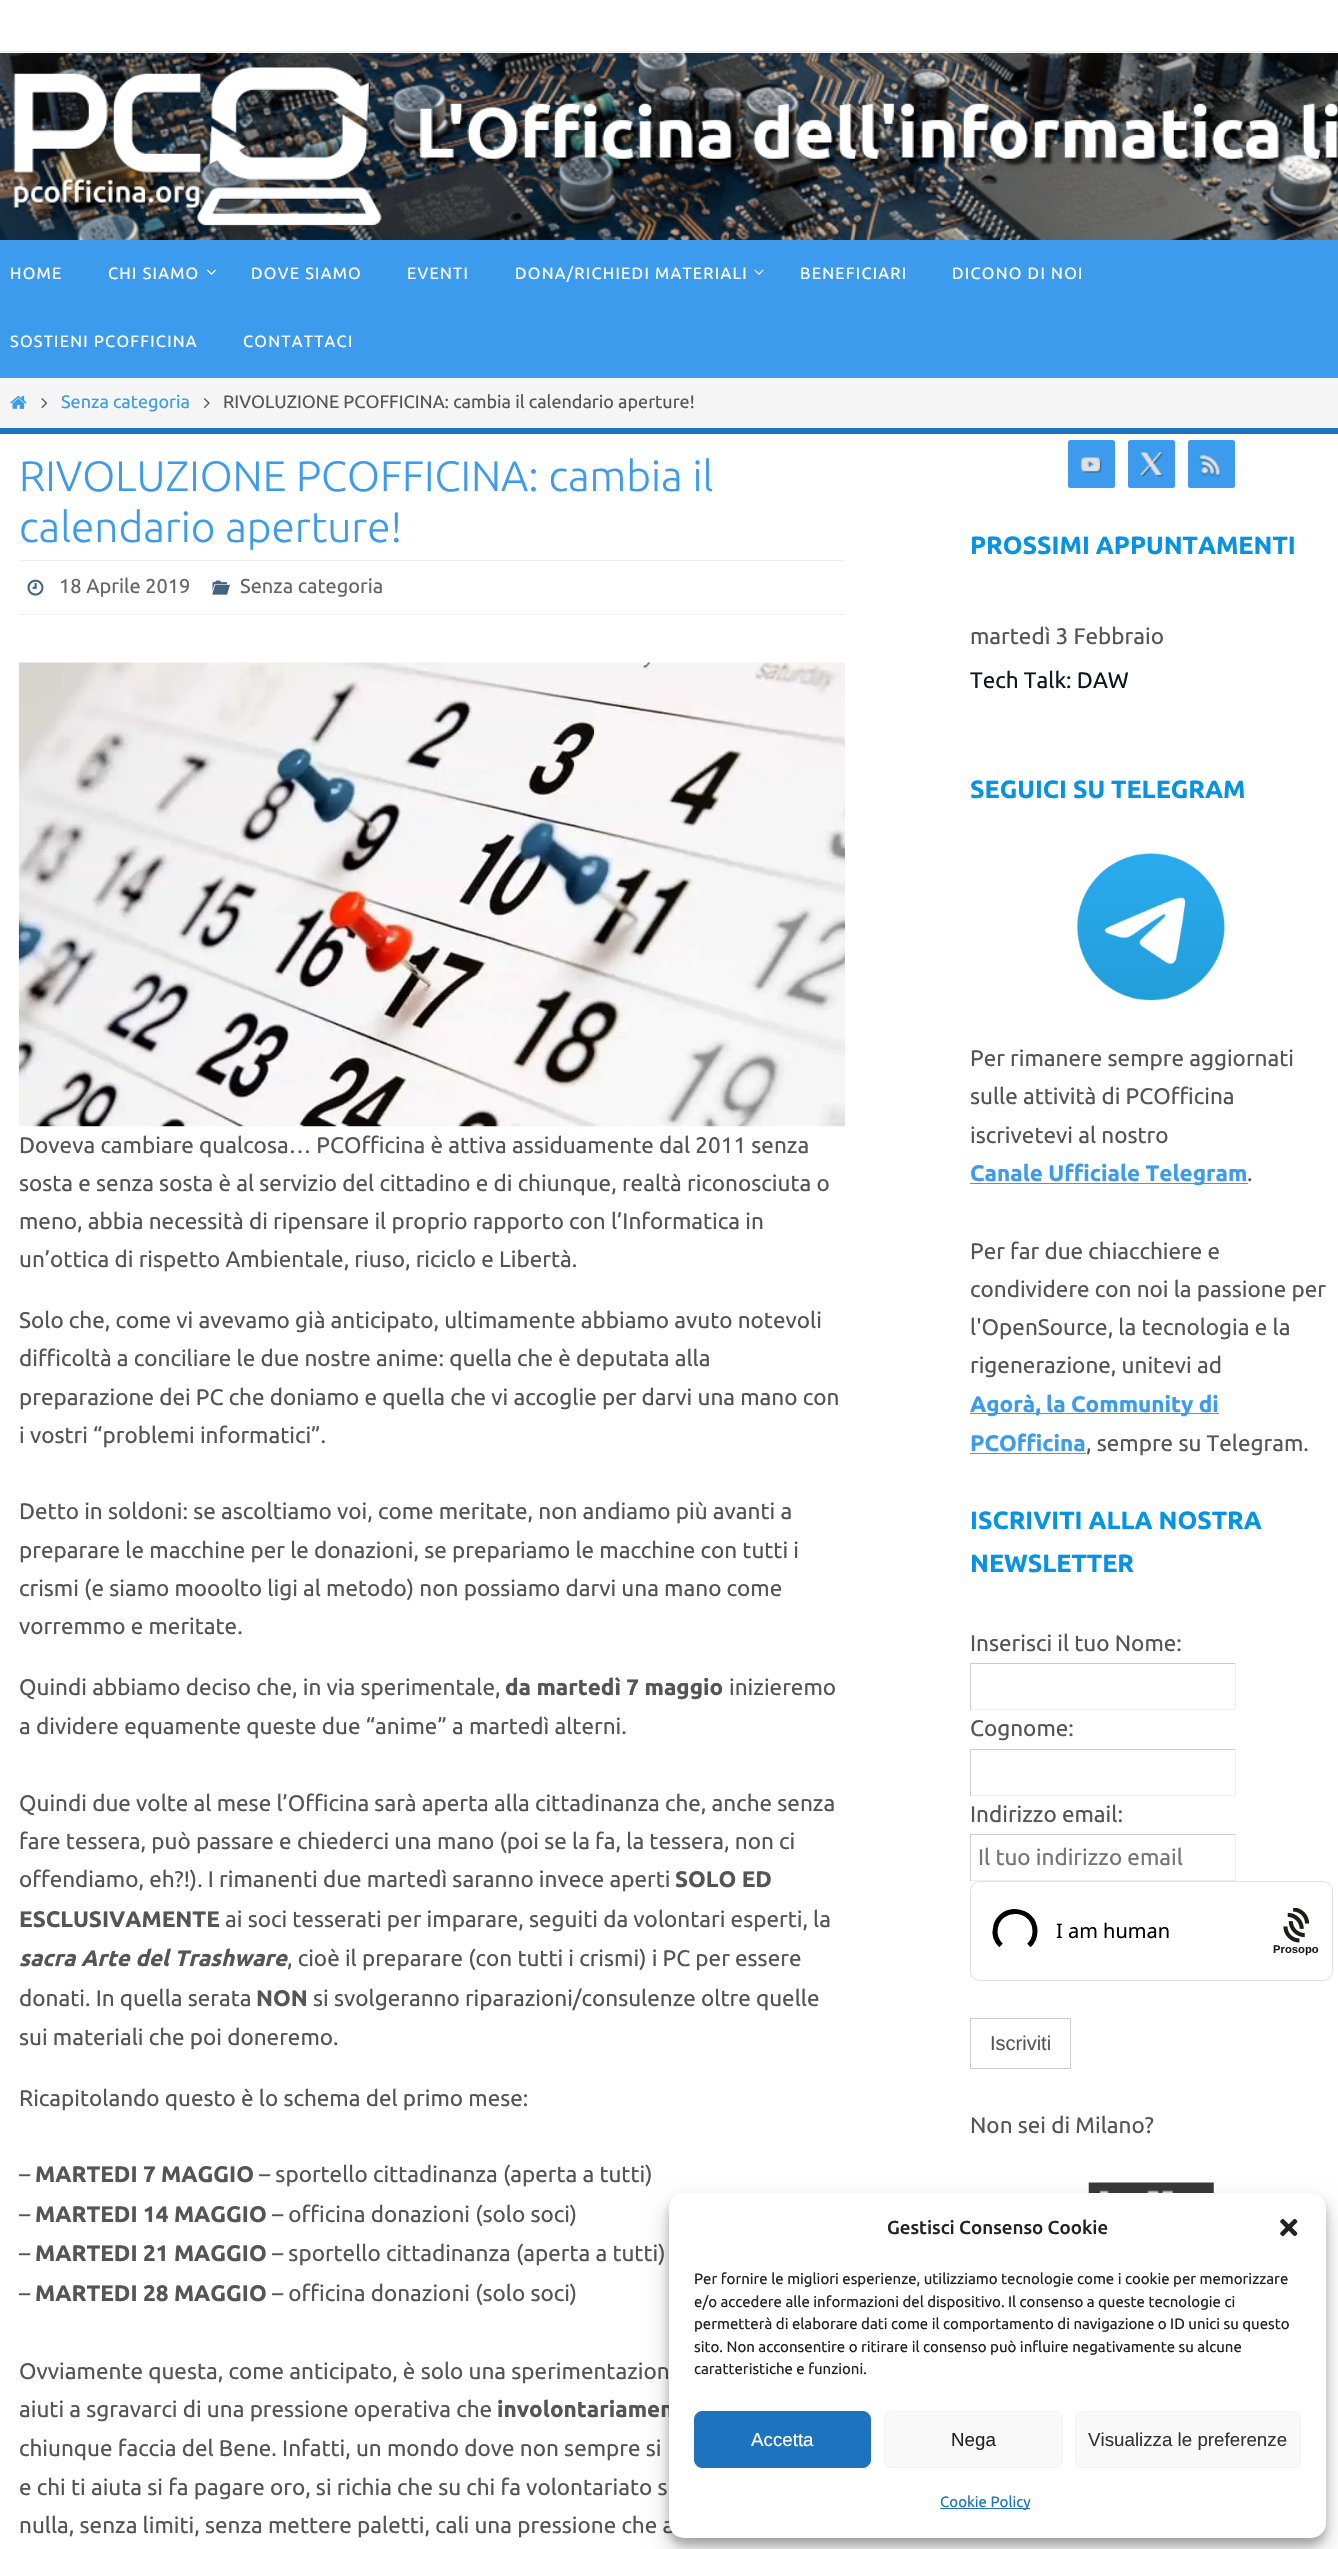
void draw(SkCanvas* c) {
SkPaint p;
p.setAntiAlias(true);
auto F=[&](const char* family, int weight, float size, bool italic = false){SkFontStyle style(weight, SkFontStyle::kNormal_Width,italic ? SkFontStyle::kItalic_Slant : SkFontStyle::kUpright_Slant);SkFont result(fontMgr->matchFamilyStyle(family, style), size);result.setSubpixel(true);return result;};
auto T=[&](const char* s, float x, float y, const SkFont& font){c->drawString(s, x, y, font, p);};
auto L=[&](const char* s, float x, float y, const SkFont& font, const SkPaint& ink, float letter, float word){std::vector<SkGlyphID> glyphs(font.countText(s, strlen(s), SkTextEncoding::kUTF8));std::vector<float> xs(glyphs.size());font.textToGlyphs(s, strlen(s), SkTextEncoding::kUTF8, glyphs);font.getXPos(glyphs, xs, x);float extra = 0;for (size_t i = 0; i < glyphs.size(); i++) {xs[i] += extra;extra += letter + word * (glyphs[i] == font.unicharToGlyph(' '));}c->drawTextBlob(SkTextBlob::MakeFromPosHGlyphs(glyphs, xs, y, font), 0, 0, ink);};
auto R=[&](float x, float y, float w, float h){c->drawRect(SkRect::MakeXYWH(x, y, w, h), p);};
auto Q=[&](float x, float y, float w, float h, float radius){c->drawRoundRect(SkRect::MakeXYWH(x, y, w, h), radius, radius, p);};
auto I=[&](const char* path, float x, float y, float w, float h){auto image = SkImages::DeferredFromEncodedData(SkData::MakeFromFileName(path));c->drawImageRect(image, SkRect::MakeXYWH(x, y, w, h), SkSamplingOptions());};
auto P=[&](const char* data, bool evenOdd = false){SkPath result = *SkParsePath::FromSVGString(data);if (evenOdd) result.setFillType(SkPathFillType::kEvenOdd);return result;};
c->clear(0xff1e73be);
p.setColor(0xffffffff);
R(0,0,1338,53);
p.setColor(0xffebebeb);
R(0,51,1338,1);
I("1.png",0,53,1338,187);
I("2.png",13,67,369,160);
p.setColor(0xff3c9bed);
R(0,240,1338,138);
auto f1 = F("Ubuntu",400,16.25);
p.setColor(0xffffffff);
L("HOME",10,279,f1,p,1.25,0);
L("CHI SIAMO",108,279,f1,p,1.25,0);
I("3.png",207,269,9,6);
L("DOVE SIAMO",251,279,f1,p,1.25,0);
L("EVENTI",407,279,f1,p,1.25,0);
L("DONA/RICHIEDI MATERIALI",515,279,f1,p,1.25,0);
I("4.png",754,269,10,6);
L("BENEFICIARI",800,279,f1,p,1.25,0);
L("DICONO DI NOI",952,279,f1,p,1.25,0);
L("SOSTIENI PCOFFICINA",10,347,f1,p,1.25,0);
L("CONTATTACI",243,347,f1,p,1.25,0);
p.setColor(0xfff5f5f5);
R(0,378,1338,50);
I("5.png",10,396,17,13);
I("6.png",41,398,7,10);
auto f2 = F("Ubuntu",400,18);
p.setColor(0xff3c9bed);
T("Senza categoria",61,408,f2);
I("7.png",203,398,7,10);
p.setColor(0xff555555);
T("RIVOLUZIONE PCOFFICINA: cambia il calendario aperture!",223,408,f2);
p.setColor(0xffffffff);
R(0,434,1338,2115);
auto f3 = F("Ubuntu",300,42.5);
p.setColor(0xff3c9bed);
T("RIVOLUZIONE PCOFFICINA: cambia il",19,491,f3);
T("calendario aperture!",19,542,f3);
p.setColor(0xffeeeeee);
R(19,560,826,1);
R(19,614,826,1);
I("8.png",27,579,17,17);
auto f4 = F("Ubuntu",400,20);
p.setColor(0xff666666);
T("18 Aprile 2019",59,593,f4);
I("9.png",212,580,18,15);
T("Senza categoria",240,593,f4);
I("10.png",18,662,827,465);
auto f5 = F("Ubuntu",400,22.5);
p.setColor(0xff555555);
T("Doveva cambiare qualcosa… PCOfficina è attiva assiduamente dal 2011 senza",19,1153,f5);
T("sosta e senza sosta è al servizio del cittadino e di chiunque, realtà riconosciuta o",19,1191,f5);
T("meno, abbia necessità di ripensare il proprio rapporto con l’Informatica in",19,1229,f5);
T("un’ottica di rispetto Ambientale, riuso, riciclo e Libertà.",19,1267,f5);
T("Solo che, come vi avevamo già anticipato, ultimamente abbiamo avuto notevoli",19,1328,f5);
T("difficoltà a conciliare le due nostre anime: quella che è deputata alla",19,1366,f5);
T("preparazione dei PC che doniamo e quella che vi accoglie per darvi una mano con",19,1405,f5);
T("i vostri “problemi informatici”.",19,1443,f5);
T("Detto in soldoni: se ascoltiamo voi, come meritate, non andiamo più avanti a",19,1519,f5);
T("preparare le macchine per le donazioni, se prepariamo le macchine con tutti i",19,1558,f5);
T("crismi (e siamo mooolto ligi al metodo) non possiamo darvi una mano come",19,1596,f5);
T("vorremmo e meritate.",19,1634,f5);
T("Quindi abbiamo deciso che, in via sperimentale,",19,1695,f5);
auto f6 = F("Ubuntu",700,22.5);
T("da martedì 7 maggio",505,1695,f6);
T("inizieremo",729,1695,f5);
T("a dividere equamente queste due “anime” a martedì alterni.",19,1734,f5);
T("Quindi due volte al mese l’Officina sarà aperta alla cittadinanza che, anche senza",19,1811,f5);
T("fare tessera, può passare e chiederci una mano (poi se la fa, la tessera, non ci",19,1849,f5);
T("offendiamo, eh?!). I rimanenti due martedì saranno invece aperti",19,1887,f5);
T("SOLO ED",675,1887,f6);
T("ESCLUSIVAMENTE",19,1927,f6);
T("ai soci tesserati per imparare, seguiti da volontari esperti, la",225,1927,f5);
auto f7 = F("Ubuntu",700,22.5,true);
T("sacra Arte del Trashware",19,1966,f7);
T(", cioè il preparare (con tutti i crismi) i PC per essere",287,1966,f5);
T("donati. In quella serata",19,2006,f5);
T("NON",256,2006,f6);
T("si svolgeranno riparazioni/consulenze oltre quelle",313,2006,f5);
T("sui materiali che poi doneremo.",19,2045,f5);
T("Ricapitolando questo è lo schema del primo mese:",19,2106,f5);
T("–",19,2182,f5);
T("MARTEDI 7 MAGGIO",35,2182,f6);
T("– sportello cittadinanza (aperta a tutti)",259,2182,f5);
T("–",19,2222,f5);
T("MARTEDI 14 MAGGIO",35,2222,f6);
T("– officina donazioni (solo soci)",272,2222,f5);
T("–",19,2261,f5);
T("MARTEDI 21 MAGGIO",35,2261,f6);
T("– sportello cittadinanza (aperta a tutti)",272,2261,f5);
T("–",19,2301,f5);
T("MARTEDI 28 MAGGIO",35,2301,f6);
T("– officina donazioni (solo soci)",272,2301,f5);
T("Ovviamente questa, come anticipato, è solo una sperimentazion",19,2379,f5);
T("aiuti a sgravarci di una pressione operativa che",19,2417,f5);
T("involontariamen",497,2417,f6);
T("chiunque faccia del Bene. Infatti, un mondo dove non sempre si",19,2456,f5);
T("e chi ti aiuta si fa pagare oro, si richia che su chi fa volontariato s",19,2495,f5);
T("nulla, senza limiti, senza mettere paletti, cali una pressione che a",19,2533,f5);
p.setColor(0xff3c9bed);
Q(1068,440,47,48,2.5);
I("11.png",1081,457,21,16);
Q(1128,440,47,48,2.5);
I("12.png",1140,452,23,25);
Q(1188,440,47,48,2.5);
I("13.png",1199,454,22,24);
auto f8 = F("Ubuntu",700,25);
p.setColor(0xff0693e3);
T("PROSSIMI APPUNTAMENTI",970,554,f8);
p.setColor(0xff555555);
T("martedì 3 Febbraio",970,644,f5);
p.setColor(0xff10181f);
T("Tech Talk: DAW",970,688,f5);
p.setColor(0xff0693e3);
T("SEGUICI SU TELEGRAM",970,798,f8);
I("14.png",1077,853,148,148);
p.setColor(0xff555555);
T("Per rimanere sempre aggiornati",970,1066,f5);
T("sulle attività di PCOfficina",970,1104,f5);
T("iscrivetevi al nostro",970,1143,f5);
p.setColor(0xff3c9bed);
R(970,1183,278,1);
T("Canale Ufficiale Telegram",970,1181,f6);
p.setColor(0xff555555);
T(".",1247,1181,f5);
T("Per far due chiacchiere e",970,1259,f5);
T("condividere con noi la passione per",970,1297,f5);
T("l'OpenSource, la tecnologia e la",970,1335,f5);
T("rigenerazione, unitevi ad",970,1373,f5);
p.setColor(0xff3c9bed);
R(970,1413,249,1);
T("Agorà, la Community di",970,1412,f6);
T("PCOfficina",970,1451,f6);
R(970,1453,116,1);
p.setColor(0xff555555);
T(", sempre su Telegram.",1086,1451,f5);
p.setColor(0xff0693e3);
T("ISCRIVITI ALLA NOSTRA",970,1529,f8);
T("NEWSLETTER",970,1572,f8);
p.setColor(0xff555555);
T("Inserisci il tuo Nome:",970,1651,f5);
p.setColor(0xffcccccc);
R(970,1663,266,1);
p.setColor(0xffeeeeee);
R(1235,1663,1,47);
R(970,1709,266,1);
p.setColor(0xffcccccc);
R(970,1663,1,47);
p.setColor(0xff555555);
T("Cognome:",970,1736,f5);
p.setColor(0xffcccccc);
R(970,1749,266,1);
p.setColor(0xffeeeeee);
R(1235,1749,1,47);
R(970,1795,266,1);
p.setColor(0xffcccccc);
R(970,1749,1,47);
p.setColor(0xff555555);
T("Indirizzo email:",970,1822,f5);
p.setColor(0xffcccccc);
R(970,1834,266,1);
p.setColor(0xffeeeeee);
R(1235,1834,1,47);
R(970,1880,266,1);
p.setColor(0xffcccccc);
R(970,1834,1,47);
p.setColor(0xff757575);
T("Il tuo indirizzo email",978,1865,f5);
p.setStroke(true);
p.setStrokeWidth(1);
p.setColor(0xffe0e0e0);
c->drawRoundRect(SkRect::MakeXYWH(970.5,1881.5,362,99),9.5,9.5,p);
p.setStrokeWidth(5);
p.setColor(0xff000000);
c->drawPath(P("M1001 1945.5c-5-5-7-11.5-5.5-18c4.5-23.5 39.5-20 39.5 3.5c0 5.5-2 10.5-6 14.5"),p);
auto f9 = F("Noto Sans",400,20);
p.setStroke(false);
T("I am human",1056,1938,f9);
I("15.png",1283,1908,27,35);
auto f10 = F("Liberation Sans",700,11.25);
p.setColor(0xff1d1d1b);
T("Prosopo",1273,1953,f10);
p.setStroke(true);
p.setStrokeWidth(1);
p.setColor(0xffcccccc);
c->drawRect(SkRect::MakeXYWH(970.5,2018.5,100,50),p);
auto f11 = F("Liberation Sans",400,20);
p.setStroke(false);
p.setColor(0xff555555);
T("Iscriviti",990,2050,f11);
T("Non sei di Milano?",970,2133,f5);
I("16.png",1088,2182,126,11);
p.setColor(0x3b000000);
p.setMaskFilter(SkMaskFilter::MakeBlur(kNormal_SkBlurStyle, 4));
c->drawRoundRect(SkRect::MakeXYWH(669,2200,657,345),15,15,p);
p.setMaskFilter(nullptr);
p.setColor(0x30000000);
p.setMaskFilter(SkMaskFilter::MakeBlur(kNormal_SkBlurStyle, 12.5));
c->drawRoundRect(SkRect::MakeXYWH(669,2205,657,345),15,15,p);
p.setMaskFilter(nullptr);
p.setColor(0xffffffff);
Q(669,2193,657,345,15);
auto f12 = F("Ubuntu",500,18.75);
p.setColor(0xff222222);
T("Gestisci Consenso Cookie",887,2234,f12);
I("17.png",1280,2218,18,19);
auto f13 = F("Ubuntu",400,15);
T("Per fornire le migliori esperienze, utilizziamo tecnologie come i cookie per memorizzare",694,2284,f13);
T("e/o accedere alle informazioni del dispositivo. Il consenso a queste tecnologie ci",694,2307,f13);
T("permetterà di elaborare dati come il comportamento di navigazione o ID unici su questo",694,2329,f13);
T("sito. Non acconsentire o ritirare il consenso può influire negativamente su alcune",694,2352,f13);
T("caratteristiche e funzioni.",694,2374,f13);
p.setColor(0xff1e73be);
c->drawRoundRect(SkRect::MakeXYWH(694.5,2411.5,176,56),7.5,7.5,p);
p.setStroke(true);
c->drawRoundRect(SkRect::MakeXYWH(694.5,2411.5,176,56),7.5,7.5,p);
auto f14 = F("Liberation Sans",400,18.75);
p.setStroke(false);
p.setColor(0xffffffff);
T("Accetta",751,2446,f14);
p.setColor(0xfff9f9f9);
c->drawRoundRect(SkRect::MakeXYWH(884.5,2411.5,178,56),7.5,7.5,p);
p.setStroke(true);
p.setColor(0xfff2f2f2);
c->drawRoundRect(SkRect::MakeXYWH(884.5,2411.5,178,56),7.5,7.5,p);
p.setStroke(false);
p.setColor(0xff222222);
T("Nega",951,2446,f14);
p.setColor(0xfff9f9f9);
c->drawRoundRect(SkRect::MakeXYWH(1075.5,2411.5,225,56),7.5,7.5,p);
p.setStroke(true);
p.setColor(0xfff2f2f2);
c->drawRoundRect(SkRect::MakeXYWH(1075.5,2411.5,225,56),7.5,7.5,p);
p.setStroke(false);
p.setColor(0xff333333);
T("Visualizza le preferenze",1088,2446,f14);
p.setColor(0xff1e73be);
R(940,2508,90,1);
T("Cookie Policy",940,2507,f13);
}
